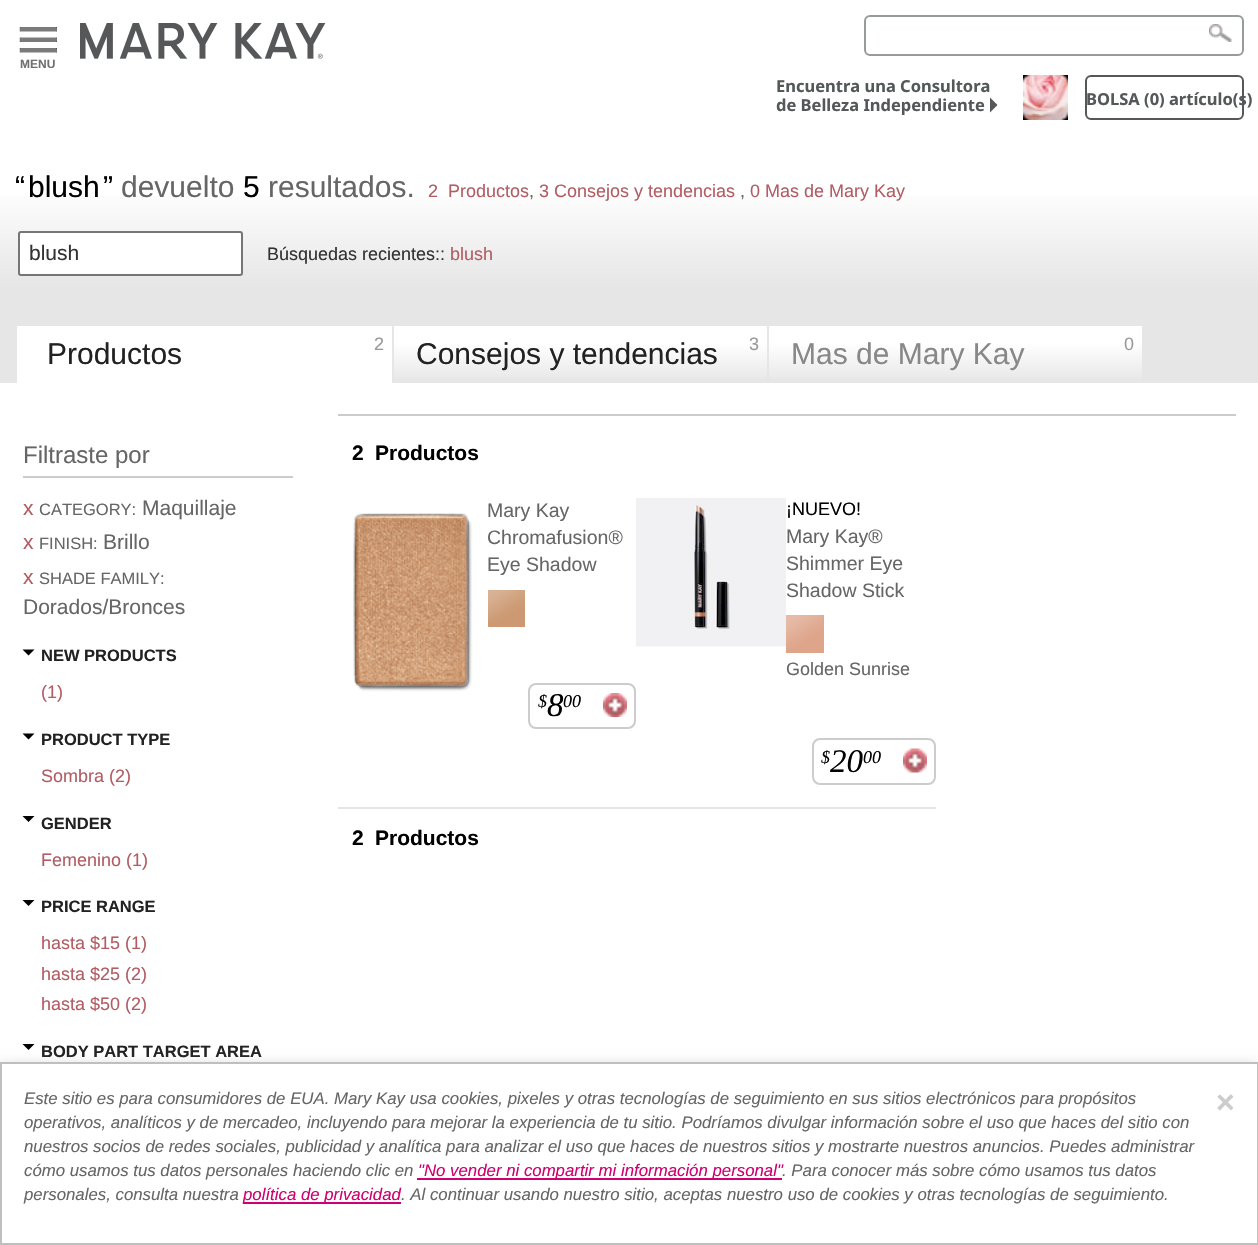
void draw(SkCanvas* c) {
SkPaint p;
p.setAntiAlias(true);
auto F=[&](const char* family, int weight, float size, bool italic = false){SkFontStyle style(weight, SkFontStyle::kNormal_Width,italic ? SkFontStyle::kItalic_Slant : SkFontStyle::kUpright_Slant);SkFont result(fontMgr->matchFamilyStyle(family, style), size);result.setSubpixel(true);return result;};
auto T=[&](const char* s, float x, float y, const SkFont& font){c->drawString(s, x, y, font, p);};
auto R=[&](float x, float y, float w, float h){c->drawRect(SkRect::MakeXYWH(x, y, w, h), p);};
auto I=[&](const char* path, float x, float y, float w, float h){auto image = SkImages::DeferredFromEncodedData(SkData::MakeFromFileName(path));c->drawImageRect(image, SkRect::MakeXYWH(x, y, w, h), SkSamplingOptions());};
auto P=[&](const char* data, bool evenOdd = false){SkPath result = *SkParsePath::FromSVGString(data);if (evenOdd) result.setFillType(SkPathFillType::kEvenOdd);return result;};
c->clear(0xffffffff);
I("1.png",1209,24,23,18);
p.setColor(0x99ffffff);
c->drawRoundRect(SkRect::MakeXYWH(865,16,378,39),5,5,p);
p.setStroke(true);
p.setStrokeWidth(2);
p.setColor(0xff989b9b);
c->drawRoundRect(SkRect::MakeXYWH(865,16,378,39),5,5,p);
I("2.png",80,23,246,36);
I("3.png",19,27,38,26);
auto f1 = F("Liberation Sans",700,12);
p.setStroke(false);
p.setColor(0xff707070);
T("MENU",20,68,f1);
auto f2 = F("Noto Sans",700,16.5);
p.setColor(0xff545859);
T("Encuentra una Consultora",776,92,f2);
T("de Belleza Independiente",776,111,f2);
p.setColor(0xff555759);
c->drawPath(P("M990 112.5v-15l7.5 7.5z"),p);
I("4.png",1023,75,45,45);
p.setStroke(true);
p.setColor(0xff545859);
c->drawRoundRect(SkRect::MakeXYWH(1086,76,157,43),5,5,p);
p.setStroke(false);
T("BOLSA (0) artículo(s)",1086,105,f2);
{
const SkColor colors[] = {0xffffffff,0xffe6e6e6};
const float stops[] = {.2,.6};
const SkPoint ends[] = {{629,135}, {629,390}};
p.setShader(SkGradientShader::MakeLinear(ends, colors, stops, 2, SkTileMode::kClamp));
p.setAlpha(255);
}
R(0,196,1258,187);
auto f3 = F("Liberation Sans",400,30);
p.setShader(nullptr);
p.setColor(0xff000000);
T("“",15,197,f3);
T("blush",28,197,f3);
T("”",103,197,f3);
p.setColor(0xff666666);
T("devuelto",121,197,f3);
p.setColor(0xff000000);
T("5",243,197,f3);
p.setColor(0xff666666);
T("resultados.",268,197,f3);
auto f4 = F("Liberation Sans",400,18);
p.setColor(0xffb25d64);
T("2  Productos",428,197,f4);
p.setColor(0xff666666);
T(",",529,197,f4);
p.setColor(0xffb25d64);
T("3 Consejos y tendencias",539,197,f4);
p.setColor(0xff666666);
T(",",740,197,f4);
p.setColor(0xffb25d64);
T("0 Mas de Mary Kay",750,197,f4);
p.setColor(0xffffffff);
c->drawRoundRect(SkRect::MakeXYWH(19,232,223,43),2,2,p);
p.setStroke(true);
p.setColor(0xff767676);
c->drawRoundRect(SkRect::MakeXYWH(19,232,223,43),2,2,p);
auto f5 = F("Liberation Sans",400,21);
p.setStroke(false);
p.setColor(0xff333333);
T("blush",29,260,f5);
T("Búsquedas recientes::",267,260,f4);
p.setColor(0xffb25d64);
T("blush",450,260,f4);
p.setColor(0xffffffff);
R(17,326,375,57);
p.setColor(0xff222222);
T("Productos",47,364,f3);
p.setColor(0xff999999);
T("2",374,350,f4);
{
const SkColor colors[] = {0xffffffff,0xffe6e6e6};
const float stops[] = {.3,1};
const SkPoint ends[] = {{580,326}, {580,383}};
p.setShader(SkGradientShader::MakeLinear(ends, colors, stops, 2, SkTileMode::kClamp));
p.setAlpha(255);
}
R(394,326,373,53);
p.setShader(nullptr);
p.setColor(0xff222222);
T("Consejos y tendencias",416,364,f3);
p.setColor(0xff999999);
T("3",749,350,f4);
{
const SkColor colors[] = {0xffffffff,0xffe6e6e6};
const float stops[] = {.3,1};
const SkPoint ends[] = {{955,326}, {955,383}};
p.setShader(SkGradientShader::MakeLinear(ends, colors, stops, 2, SkTileMode::kClamp));
p.setAlpha(255);
}
R(769,326,373,53);
p.setShader(nullptr);
p.setColor(0xff888888);
T("Mas de Mary Kay",791,364,f3);
p.setColor(0xff999999);
T("0",1124,350,f4);
p.setColor(0xffcccccc);
R(23,476,270,2);
auto f6 = F("Liberation Sans",400,24);
p.setColor(0xff666666);
T("Filtraste por",23,463,f6);
p.setColor(0xffb25d64);
T("x",23,515,f5);
auto f7 = F("Liberation Sans",400,16.5);
p.setColor(0xff666666);
T("CATEGORY:",39,515,f7);
T("Maquillaje",142,515,f5);
p.setColor(0xffb25d64);
T("x",23,549,f5);
p.setColor(0xff666666);
T("FINISH:",39,549,f7);
T("Brillo",103,549,f5);
p.setColor(0xffb25d64);
T("x",23,584,f5);
p.setColor(0xff666666);
T("SHADE FAMILY:",39,584,f7);
T("Dorados/Bronces",23,614,f5);
p.setColor(0xff000000);
c->drawPath(P("M22.5 649.5h12l-6 6z"),p);
auto f8 = F("Liberation Sans",700,16.5);
p.setColor(0xff222222);
T("NEW PRODUCTS",41,661,f8);
p.setColor(0xffb25d64);
T("(1)",41,698,f4);
p.setColor(0xff000000);
c->drawPath(P("M22.5 733.5h12l-6 6z"),p);
p.setColor(0xff222222);
T("PRODUCT TYPE",41,745,f8);
p.setColor(0xffb25d64);
T("Sombra (2)",41,782,f4);
p.setColor(0xff000000);
c->drawPath(P("M22.5 816h12l-6 6z"),p);
p.setColor(0xff222222);
T("GENDER",41,829,f8);
p.setColor(0xffb25d64);
T("Femenino (1)",41,866,f4);
p.setColor(0xff000000);
c->drawPath(P("M22.5 900h12l-6 6z"),p);
p.setColor(0xff222222);
T("PRICE RANGE",41,912,f8);
p.setColor(0xffb25d64);
T("hasta $15 (1)",41,949,f4);
T("hasta $25 (2)",41,980,f4);
T("hasta $50 (2)",41,1010,f4);
p.setColor(0xff000000);
c->drawPath(P("M22.5 1044h12l-6 6z"),p);
p.setColor(0xff222222);
T("BODY PART TARGET AREA",41,1057,f8);
p.setColor(0xffcccccc);
R(338,414,898,2);
auto f9 = F("Liberation Sans",700,21);
p.setColor(0xff000000);
T("2",352,460,f9);
T("Productos",375,460,f9);
p.setColor(0xffe5e5e5);
R(338,807,598,2);
auto f10 = F("Liberation Sans",400,19.5);
p.setColor(0xff666666);
T("Chromafusion®",487,544,f10);
I("5.png",353,513,135,179);
T("Mary Kay",487,517,f10);
T("Eye Shadow",487,571,f10);
p.setColor(0xffcc9972);
R(488,590,37,37);
I("6.png",488,590,37,33);
p.setStroke(true);
p.setColor(0xffcccccc);
c->drawRoundRect(SkRect::MakeXYWH(529,684,106,44),7,7,p);
auto f11 = F("Liberation Serif",400,18,true);
p.setStroke(false);
p.setColor(0xff000000);
T("$",538,707,f11);
auto f12 = F("Liberation Serif",400,33,true);
T("8",547,716,f12);
T("00",563,707,f11);
I("7.png",603,693,24,24);
I("8.png",636,498,150,149);
T("¡NUEVO!",786,515,f4);
p.setColor(0xff666666);
T("Mary Kay®",786,543,f10);
T("Shimmer Eye",786,570,f10);
T("Shadow Stick",786,597,f10);
p.setColor(0xffdea58b);
R(786,615,38,38);
I("9.png",786,615,38,33);
p.setColor(0xff666666);
T("Golden Sunrise",786,675,f4);
p.setStroke(true);
p.setColor(0xffcccccc);
c->drawRoundRect(SkRect::MakeXYWH(813,739,122,45),7,7,p);
p.setStroke(false);
p.setColor(0xff000000);
T("20",830,772,f12);
T("$",821,763,f11);
T("00",863,763,f11);
I("10.png",903,748,24,25);
T("2",352,845,f9);
T("Productos",375,845,f9);
p.setColor(0xff999999);
p.setMaskFilter(SkMaskFilter::MakeBlur(kNormal_SkBlurStyle, 7.5));
c->drawRect(SkRect::MakeXYWH(0,1070,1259,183),p);
p.setMaskFilter(nullptr);
p.setColor(0xffffffff);
c->drawRect(SkRect::MakeXYWH(1,1063,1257,181),p);
p.setStroke(true);
p.setColor(0xffbfbfbf);
c->drawRect(SkRect::MakeXYWH(1,1063,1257,181),p);
auto f13 = F("Liberation Sans",400,16.8,true);
p.setStroke(false);
p.setColor(0xff666666);
T("Este sitio es para consumidores de EUA. Mary Kay usa cookies, pixeles y otras tecnologías de seguimiento en sus sitios electrónicos para propósitos",24,1104,f13);
T("operativos, analíticos y de mercadeo, incluyendo para mejorar la experiencia de tu sitio. Podríamos divulgar información sobre el uso que haces del sitio con",24,1128,f13);
T("nuestros socios de redes sociales, publicidad y analítica para analizar el uso que haces de nuestros sitios y mostrarte nuestros anuncios. Puedes administrar",24,1152,f13);
T("cómo usamos tus datos personales haciendo clic en",24,1176,f13);
p.setColor(0xffd00070);
R(417,1178,365,2);
T("\"No vender ni compartir mi información personal\"",418,1176,f13);
p.setColor(0xff666666);
T(". Para conocer más sobre cómo usamos tus datos",782,1176,f13);
T("personales, consulta nuestra",24,1200,f13);
p.setColor(0xffd00070);
R(243,1202,158,2);
T("política de privacidad",243,1200,f13);
p.setColor(0xff666666);
T(". Al continuar usando nuestro sitio, aceptas nuestro uso de cookies y otras tecnologías de seguimiento.",401,1200,f13);
auto f14 = F("Liberation Sans",700,32);
p.setColor(0xffcccccc);
T("×",1216,1113,f14);
}
